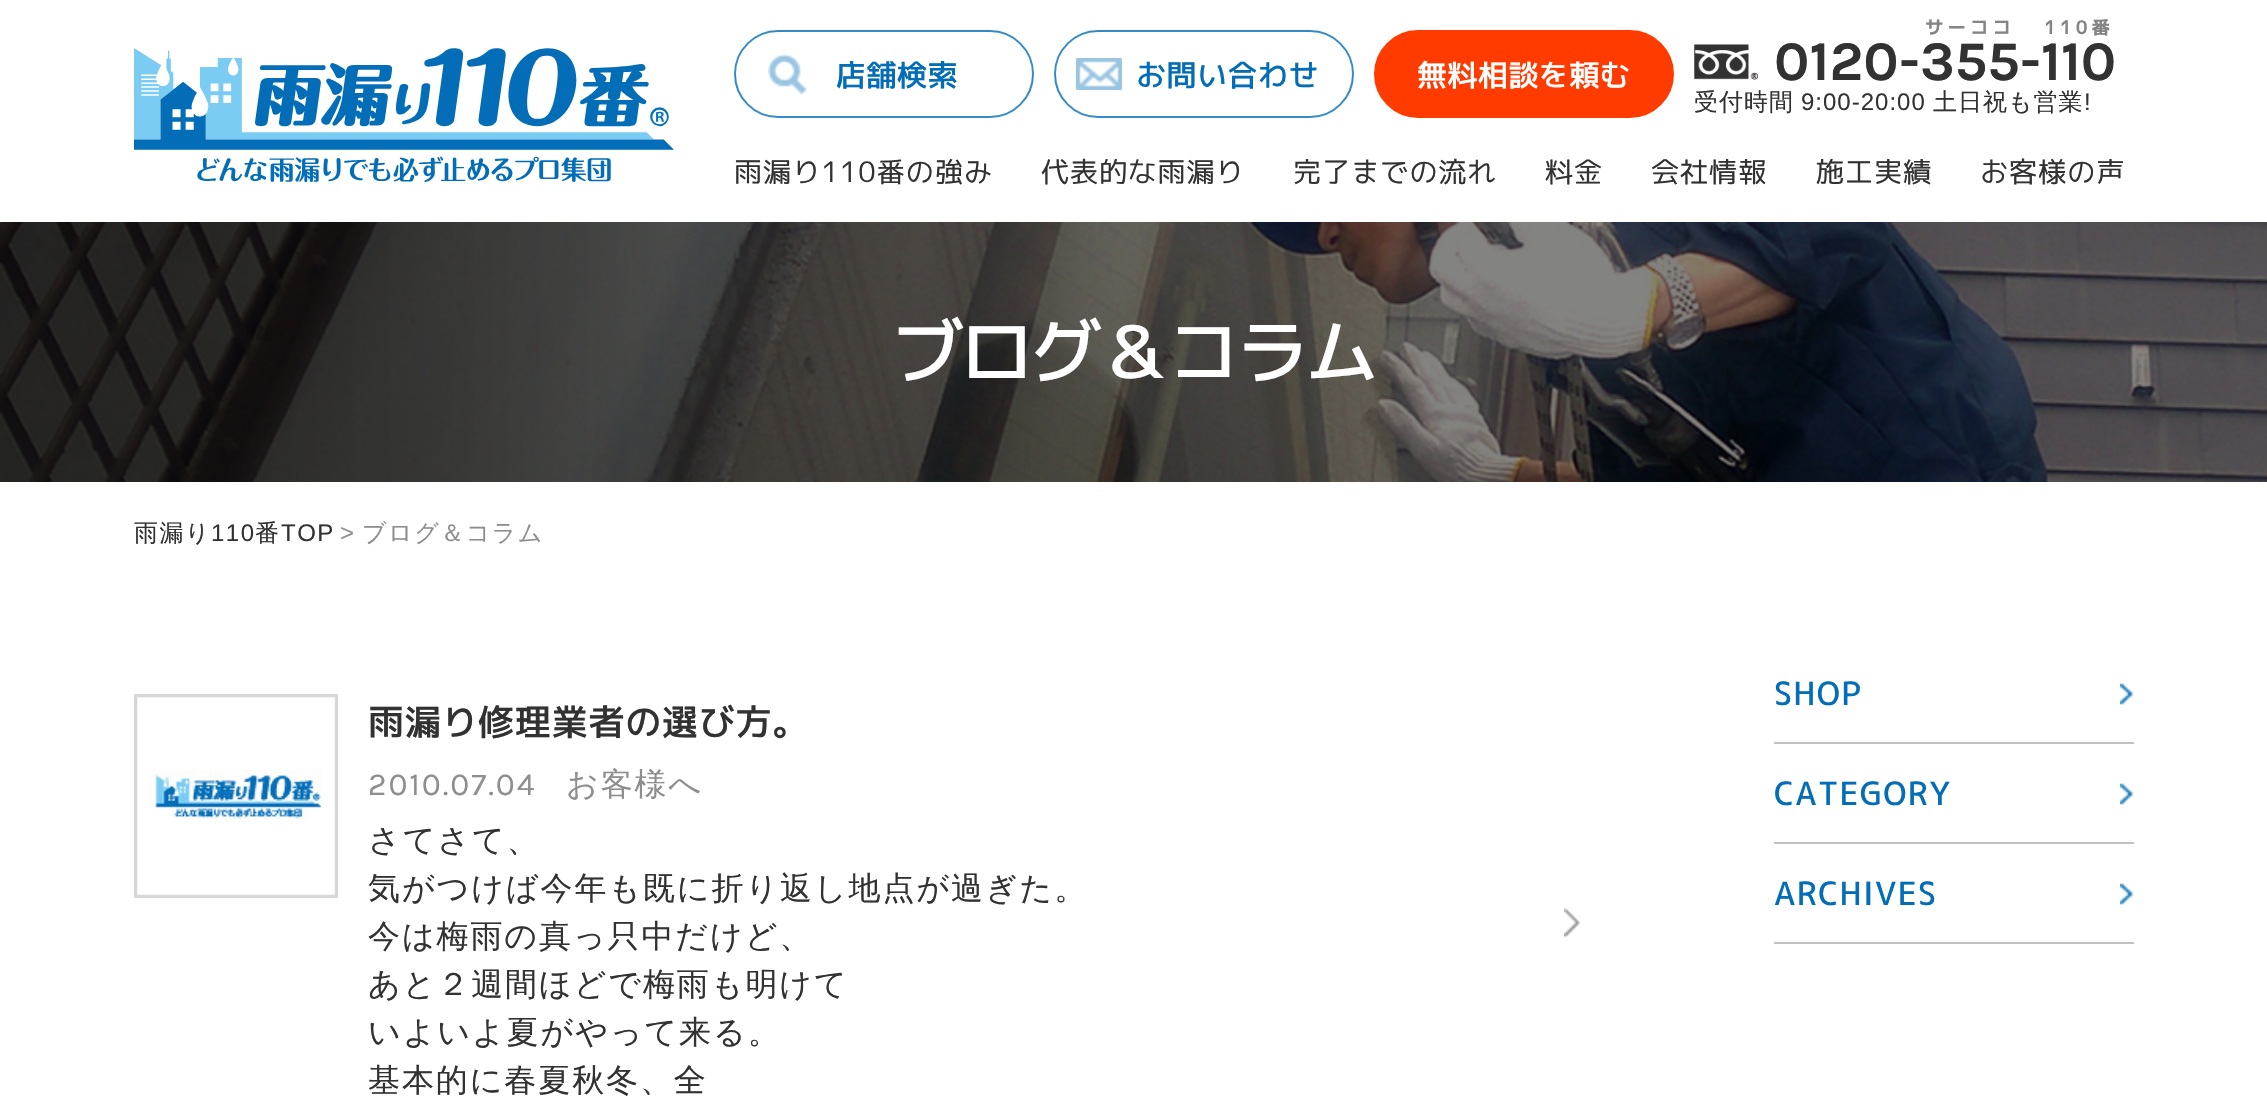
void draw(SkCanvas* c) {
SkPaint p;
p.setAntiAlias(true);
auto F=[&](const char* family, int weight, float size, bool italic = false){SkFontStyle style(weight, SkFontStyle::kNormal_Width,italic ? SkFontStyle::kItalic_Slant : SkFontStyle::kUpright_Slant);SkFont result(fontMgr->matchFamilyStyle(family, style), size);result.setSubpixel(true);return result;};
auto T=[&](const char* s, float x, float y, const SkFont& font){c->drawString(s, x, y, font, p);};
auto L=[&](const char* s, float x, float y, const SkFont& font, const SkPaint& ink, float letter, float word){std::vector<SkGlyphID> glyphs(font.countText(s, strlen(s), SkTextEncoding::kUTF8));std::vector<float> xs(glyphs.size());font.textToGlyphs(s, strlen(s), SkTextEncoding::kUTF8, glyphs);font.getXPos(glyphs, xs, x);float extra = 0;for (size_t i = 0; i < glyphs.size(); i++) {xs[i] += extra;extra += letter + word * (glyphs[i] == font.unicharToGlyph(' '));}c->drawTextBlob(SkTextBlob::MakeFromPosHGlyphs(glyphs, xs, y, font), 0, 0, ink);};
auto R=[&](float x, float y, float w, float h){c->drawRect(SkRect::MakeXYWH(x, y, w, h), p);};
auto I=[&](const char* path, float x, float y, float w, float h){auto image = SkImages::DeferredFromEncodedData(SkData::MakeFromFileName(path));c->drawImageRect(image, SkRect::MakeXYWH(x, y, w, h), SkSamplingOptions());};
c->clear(0xffffffff);
I("1.png",134,48,540,134);
I("2.png",768,54,38,40);
p.setStroke(true);
p.setStrokeWidth(2);
p.setColor(0xff358bc5);
c->drawRoundRect(SkRect::MakeXYWH(735,31,298,86),43,43,p);
auto f1 = F("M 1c",500,30);
p.setStroke(false);
p.setColor(0xff036eb7);
L("店舗検索",836,86,f1,p,.5,0);
I("3.png",1076,58,46,32);
p.setStroke(true);
p.setColor(0xff358bc5);
c->drawRoundRect(SkRect::MakeXYWH(1055,31,298,86),43,43,p);
p.setStroke(false);
p.setColor(0xff036eb7);
L("お問い合わせ",1136,86,f1,p,.5,0);
p.setColor(0xffff3b00);
c->drawRoundRect(SkRect::MakeXYWH(1375,31,298,86),43,43,p);
p.setStroke(true);
c->drawRoundRect(SkRect::MakeXYWH(1375,31,298,86),43,43,p);
p.setStroke(false);
p.setColor(0xffffffff);
L("無料相談を頼む",1417,86,f1,p,.5,0);
I("4.png",1694,44,64,36);
auto f2 = F("M 1c",700,18);
p.setColor(0xff848484);
L("サーココ",1925,34,f2,p,4.5,0);
L("110番",2044,34,f2,p,4.5,0);
auto f3 = F("Karla",700,56);
p.setColor(0xff323232);
T("0120",1774,80,f3);
T("-355",1899,80,f3);
T("-110",2020,80,f3);
auto f4 = F("WenQuanYi Zen Hei",500,24);
L("受付時間",1694,110,f4,p,1,0);
auto f5 = F("Liberation Sans",400,24);
L("9:00-20:00",1801,110,f5,p,1,0);
L("土日祝も営業",1933,110,f4,p,1,0);
L("!",2084,110,f5,p,1,0);
auto f6 = F("M 1c",400,28);
L("雨漏り110番の強み",734,182,f6,p,1.1,0);
L("代表的な雨漏り",1041,182,f6,p,1.1,0);
L("完了までの流れ",1293,182,f6,p,1.1,0);
L("料金",1545,182,f6,p,1.1,0);
L("会社情報",1651,182,f6,p,1.1,0);
L("施工実績",1816,182,f6,p,1.1,0);
L("お客様の声",1980,182,f6,p,1.1,0);
I("5.png",0,222,2267,260);
auto f7 = F("M 1c",500,72);
p.setColor(0xffffffff);
L("ブログ＆コラム",892,378,f7,p,-3,0);
p.setColor(0xff323232);
L("雨漏り",134,541,f4,p,1.5,0);
L("110",211,541,f5,p,1.5,0);
L("番",255,541,f4,p,1.5,0);
L("TOP",281,541,f5,p,1.5,0);
p.setColor(0xff8e8e8e);
L(">",340,541,f5,p,1.5,0);
L("ブログ＆コラム",362,541,f4,p,1.5,0);
I("6.png",1564,908,16,30);
I("7.png",134,694,204,204);
auto f8 = F("M 1c",500,36);
p.setColor(0xff323232);
L("雨漏り修理業者の選び方。",368,735,f8,p,.75,0);
auto f9 = F("Karla",400,32);
p.setColor(0xff8e8e8e);
L("2010.07.04",368,795,f9,p,1.9,0);
auto f10 = F("WenQuanYi Zen Hei",500,32);
L("お客様へ",566,795,f10,p,1.9,0);
p.setColor(0xff323232);
L("さてさて、",368,851,f10,p,1.9,0);
L("気がつけば今年も既に折り返し地点が過ぎた。",368,899,f10,p,1.9,0);
L("今は梅雨の真っ只中だけど、",368,947,f10,p,1.9,0);
L("あと２週間ほどで梅雨も明けて",368,995,f10,p,1.9,0);
L("いよいよ夏がやって来る。",368,1043,f10,p,1.9,0);
L("基本的に春夏秋冬、全",368,1091,f10,p,1.9,0);
p.setColor(0xffc1c1c1);
R(1774,742,360,2);
I("8.png",2120,683,14,22);
auto f11 = F("M 1c",500,32);
p.setColor(0xff036eb7);
L("SHOP",1774,705,f11,p,1.25,0);
p.setColor(0xffc1c1c1);
R(1774,842,360,2);
I("8.png",2120,783,14,22);
p.setColor(0xff036eb7);
L("CATEGORY",1774,805,f11,p,1.25,0);
p.setColor(0xffc1c1c1);
R(1774,942,360,2);
I("8.png",2120,883,14,22);
p.setColor(0xff036eb7);
L("ARCHIVES",1774,905,f11,p,1.25,0);
}
